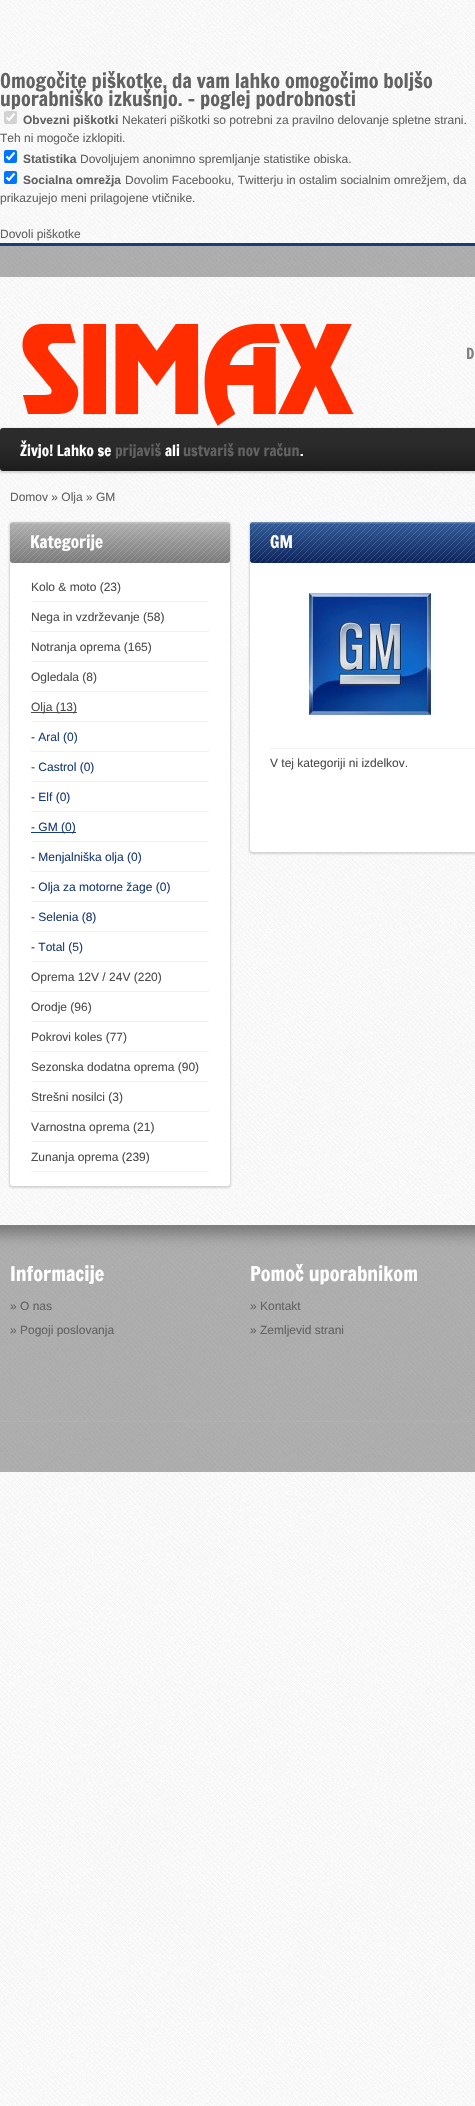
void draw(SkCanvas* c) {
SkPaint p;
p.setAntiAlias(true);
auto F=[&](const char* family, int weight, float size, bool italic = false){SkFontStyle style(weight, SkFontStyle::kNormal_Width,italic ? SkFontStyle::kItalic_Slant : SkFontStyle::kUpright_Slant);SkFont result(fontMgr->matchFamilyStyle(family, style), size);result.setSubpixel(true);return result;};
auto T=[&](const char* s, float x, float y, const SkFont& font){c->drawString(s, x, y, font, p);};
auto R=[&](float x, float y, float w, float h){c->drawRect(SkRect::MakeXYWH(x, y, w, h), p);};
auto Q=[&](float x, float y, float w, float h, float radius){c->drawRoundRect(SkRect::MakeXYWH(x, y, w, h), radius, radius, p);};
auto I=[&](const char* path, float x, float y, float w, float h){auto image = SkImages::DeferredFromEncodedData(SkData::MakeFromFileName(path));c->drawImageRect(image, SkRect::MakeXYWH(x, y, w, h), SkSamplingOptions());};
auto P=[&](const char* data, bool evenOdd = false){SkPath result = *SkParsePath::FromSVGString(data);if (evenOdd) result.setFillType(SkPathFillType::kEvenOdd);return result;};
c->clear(0xffffffff);
I("1.png",0,0,475,2106);
auto f1 = F("Francois One",400,20);
p.setColor(0xff626262);
T("Omogočite piškotke, da vam lahko omogočimo boljšo",0,88,f1);
T("uporabniško izkušnjo. - poglej podrobnosti",0,106,f1);
p.setColor(0x4d767676);
Q(4,111,13,13,2);
p.setStroke(true);
p.setStrokeWidth(2.1);
p.setColor(0xffffffff);
c->drawPath(P("M6.5 117.5l2.5 2.5l5.5-6.5"),p);
auto f2 = F("Liberation Sans",700,12);
p.setStroke(false);
p.setColor(0xff626262);
T("Obvezni piškotki",23,124,f2);
auto f3 = F("Liberation Sans",400,12);
T("Nekateri piškotki so potrebni za pravilno delovanje spletne strani.",122,124,f3);
T("Teh ni mogoče izklopiti.",0,142,f3);
p.setColor(0xff0075ff);
Q(4,150,13,13,2);
p.setStroke(true);
p.setColor(0xffffffff);
c->drawPath(P("M6.5 156.5l2.5 2.5l5.5-6.5"),p);
p.setStroke(false);
p.setColor(0xff626262);
T("Statistika",23,163,f2);
T("Dovoljujem anonimno spremljanje statistike obiska.",80,163,f3);
p.setColor(0xff0075ff);
Q(4,171,13,13,2);
p.setStroke(true);
p.setColor(0xffffffff);
c->drawPath(P("M6.5 177.5l2.5 2.5l5.5-6.5"),p);
p.setStroke(false);
p.setColor(0xff626262);
T("Socialna omrežja",23,184,f2);
T("Dovolim Facebooku, Twitterju in ostalim socialnim omrežjem, da",125,184,f3);
T("prikazujejo meni prilagojene vtičnike.",0,202,f3);
T("Dovoli piškotke",0,238,f3);
p.setColor(0x4d000000);
R(0,246,475,31);
p.setColor(0xff1a3c7b);
R(0,243,475,3);
I("2.png",22,324,332,102);
auto f4 = F("Francois One",400,15);
p.setColor(0xff808080);
T("D",466,359,f4);
p.setColor(0x26000000);
p.setMaskFilter(SkMaskFilter::MakeBlur(kNormal_SkBlurStyle, 1));
c->drawRoundRect(SkRect::MakeXYWH(-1,428,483,45),4,4,p);
p.setMaskFilter(nullptr);
{
const SkColor colors[] = {0xff1d1d1d,0xff2b2b2b};
const float stops[] = {0,.6};
const SkPoint ends[] = {{0,471}, {0,428}};
p.setShader(SkGradientShader::MakeLinear(ends, colors, stops, 2, SkTileMode::kClamp));
p.setAlpha(255);
}
Q(0,428,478,43,3);
p.setShader(nullptr);
p.setColor(0xffffffff);
T("Živjo! Lahko se",20,456,f4);
p.setColor(0xff626262);
T("prijaviš",115,456,f4);
p.setColor(0xffffffff);
T("ali",165,456,f4);
p.setColor(0xff626262);
T("ustvariš nov račun",183,456,f4);
p.setColor(0xffffffff);
T(".",300,456,f4);
p.setColor(0xff626262);
T("Domov » Olja » GM",10,501,f3);
p.setColor(0x26000000);
p.setMaskFilter(SkMaskFilter::MakeBlur(kNormal_SkBlurStyle, 1));
c->drawRoundRect(SkRect::MakeXYWH(9,522,222,666),4,4,p);
p.setMaskFilter(nullptr);
p.setColor(0xffffffff);
Q(10,522,220,664,3);
{
const SkColor colors[] = {0xff7b7b7b,0xffaeaeae};
const float stops[] = {0,.94};
const SkPoint ends[] = {{10,563}, {10,522}};
p.setShader(SkGradientShader::MakeLinear(ends, colors, stops, 2, SkTileMode::kClamp));
p.setAlpha(255);
}
Q(10,522,220,41,3);
I("3.png",10,522,220,41);
auto f5 = F("Francois One",400,17);
p.setShader(nullptr);
p.setColor(0xffffffff);
T("Kategorije",30,548,f5);
p.setColor(0xfff2f2f2);
R(31,601,178,1);
p.setColor(0xff4c4c4c);
T("Kolo & moto (23)",31,591,f3);
p.setColor(0xfff2f2f2);
R(31,631,178,1);
p.setColor(0xff4c4c4c);
T("Nega in vzdrževanje (58)",31,621,f3);
p.setColor(0xfff2f2f2);
R(31,661,178,1);
p.setColor(0xff4c4c4c);
T("Notranja oprema (165)",31,651,f3);
p.setColor(0xfff2f2f2);
R(31,691,178,1);
p.setColor(0xff4c4c4c);
T("Ogledala (8)",31,681,f3);
p.setColor(0xfff2f2f2);
R(31,721,178,1);
p.setColor(0xff4c4c4c);
R(31,712,46,1);
T("Olja (13)",31,711,f3);
p.setColor(0xfff2f2f2);
R(31,751,178,1);
p.setColor(0xff1a3c7b);
T("- Aral (0)",31,741,f3);
p.setColor(0xfff2f2f2);
R(31,781,178,1);
p.setColor(0xff1a3c7b);
T("- Castrol (0)",31,771,f3);
p.setColor(0xfff2f2f2);
R(31,811,178,1);
p.setColor(0xff1a3c7b);
T("- Elf (0)",31,801,f3);
p.setColor(0xfff2f2f2);
R(31,841,178,1);
p.setColor(0xff1a3c7b);
R(31,832,45,1);
T("- GM (0)",31,831,f3);
p.setColor(0xfff2f2f2);
R(31,871,178,1);
p.setColor(0xff1a3c7b);
T("- Menjalniška olja (0)",31,861,f3);
p.setColor(0xfff2f2f2);
R(31,901,178,1);
p.setColor(0xff1a3c7b);
T("- Olja za motorne žage (0)",31,891,f3);
p.setColor(0xfff2f2f2);
R(31,931,178,1);
p.setColor(0xff1a3c7b);
T("- Selenia (8)",31,921,f3);
p.setColor(0xfff2f2f2);
R(31,961,178,1);
p.setColor(0xff1a3c7b);
T("- Total (5)",31,951,f3);
p.setColor(0xfff2f2f2);
R(31,991,178,1);
p.setColor(0xff4c4c4c);
T("Oprema 12V / 24V (220)",31,981,f3);
p.setColor(0xfff2f2f2);
R(31,1021,178,1);
p.setColor(0xff4c4c4c);
T("Orodje (96)",31,1011,f3);
p.setColor(0xfff2f2f2);
R(31,1051,178,1);
p.setColor(0xff4c4c4c);
T("Pokrovi koles (77)",31,1041,f3);
p.setColor(0xfff2f2f2);
R(31,1081,178,1);
p.setColor(0xff4c4c4c);
T("Sezonska dodatna oprema (90)",31,1071,f3);
p.setColor(0xfff2f2f2);
R(31,1111,178,1);
p.setColor(0xff4c4c4c);
T("Strešni nosilci (3)",31,1101,f3);
p.setColor(0xfff2f2f2);
R(31,1141,178,1);
p.setColor(0xff4c4c4c);
T("Varnostna oprema (21)",31,1131,f3);
p.setColor(0xfff2f2f2);
R(31,1171,178,1);
p.setColor(0xff4c4c4c);
T("Zunanja oprema (239)",31,1161,f3);
p.setColor(0x26000000);
p.setMaskFilter(SkMaskFilter::MakeBlur(kNormal_SkBlurStyle, 1));
c->drawRoundRect(SkRect::MakeXYWH(249,522,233,332),4,4,p);
p.setMaskFilter(nullptr);
p.setColor(0xffffffff);
Q(250,522,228,330,3);
{
const SkColor colors[] = {0xff0f255c,0xff325a95};
const float stops[] = {0,.94};
const SkPoint ends[] = {{250,563}, {250,522}};
p.setShader(SkGradientShader::MakeLinear(ends, colors, stops, 2, SkTileMode::kClamp));
p.setAlpha(255);
}
Q(250,522,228,41,3);
I("4.png",250,522,225,41);
p.setShader(nullptr);
p.setColor(0xffffffff);
T("GM",270,548,f5);
I("5.png",302,593,135,122);
p.setColor(0xfff2f2f2);
R(270,748,205,1);
p.setColor(0xff4c4c4c);
T("V tej kategoriji ni izdelkov.",270,767,f3);
I("6.png",0,1225,475,247);
p.setColor(0xffffffff);
T("Informacije",10,1281,f1);
p.setColor(0xff626262);
T("» O nas",10,1310,f3);
T("» Pogoji poslovanja",10,1334,f3);
p.setColor(0xffffffff);
T("Pomoč uporabnikom",250,1281,f1);
p.setColor(0xff626262);
T("» Kontakt",250,1310,f3);
T("» Zemljevid strani",250,1334,f3);
p.setColor(0x0dffffff);
R(0,1421,475,1);
}
